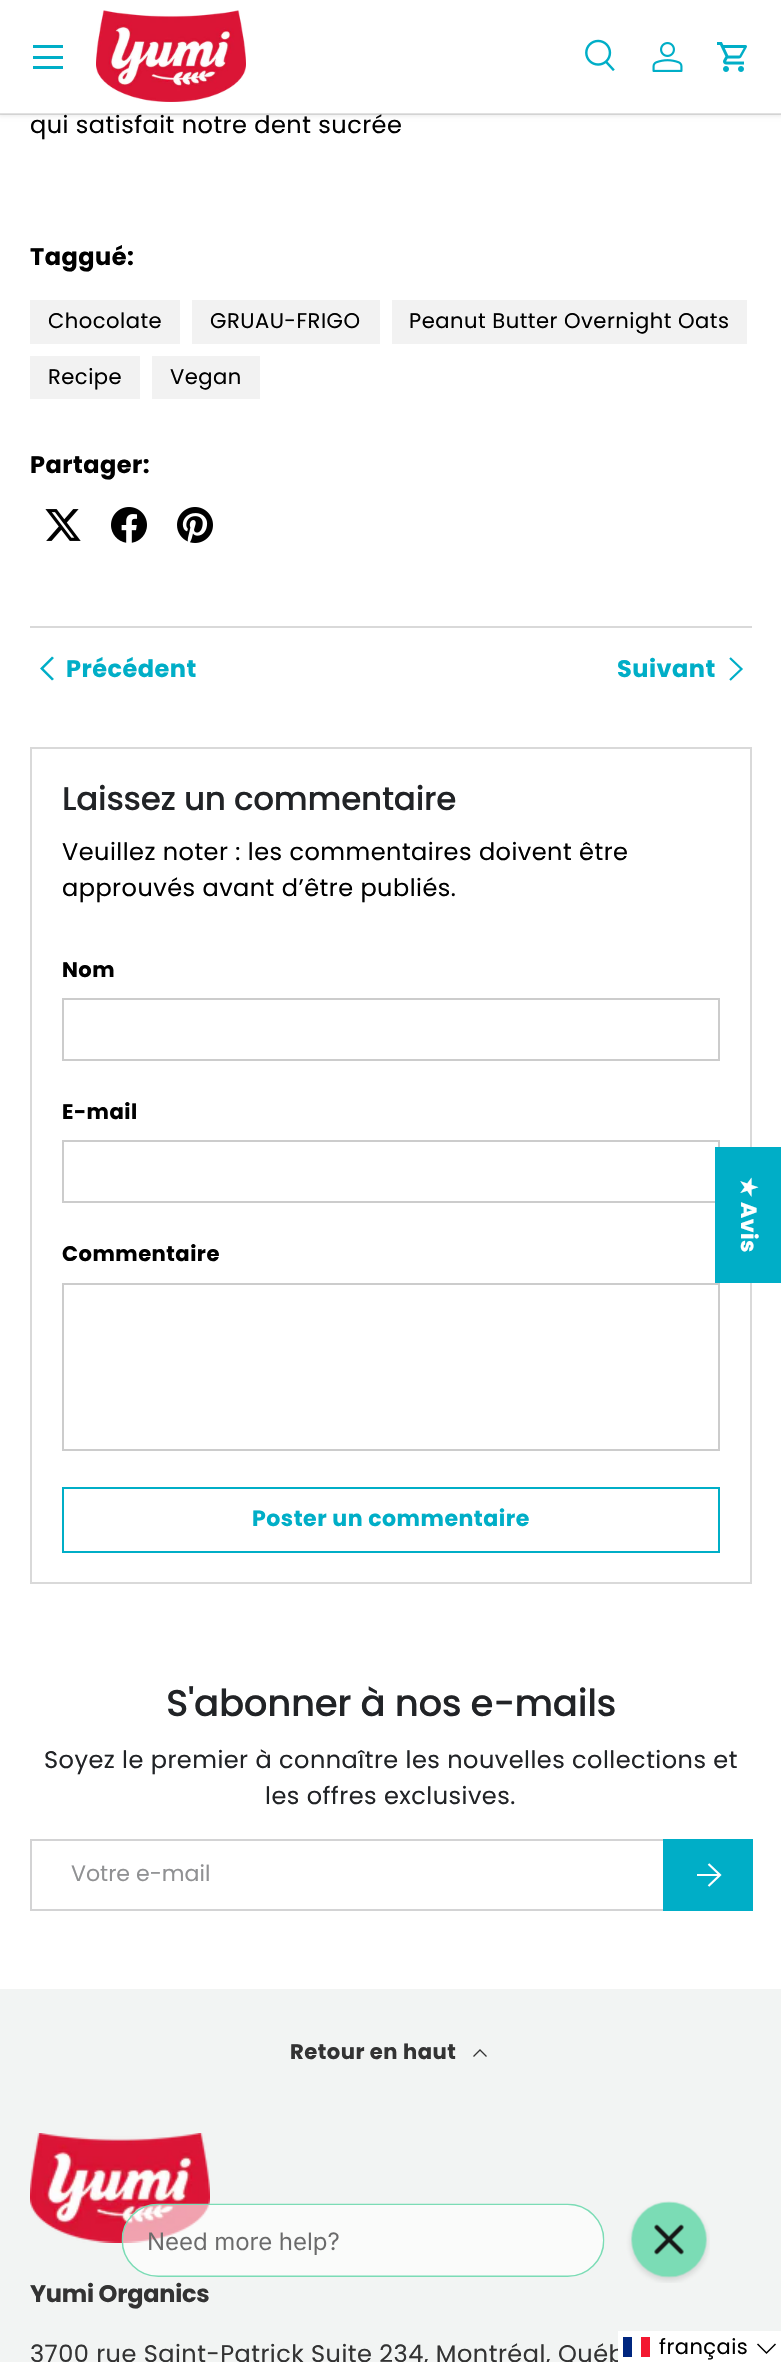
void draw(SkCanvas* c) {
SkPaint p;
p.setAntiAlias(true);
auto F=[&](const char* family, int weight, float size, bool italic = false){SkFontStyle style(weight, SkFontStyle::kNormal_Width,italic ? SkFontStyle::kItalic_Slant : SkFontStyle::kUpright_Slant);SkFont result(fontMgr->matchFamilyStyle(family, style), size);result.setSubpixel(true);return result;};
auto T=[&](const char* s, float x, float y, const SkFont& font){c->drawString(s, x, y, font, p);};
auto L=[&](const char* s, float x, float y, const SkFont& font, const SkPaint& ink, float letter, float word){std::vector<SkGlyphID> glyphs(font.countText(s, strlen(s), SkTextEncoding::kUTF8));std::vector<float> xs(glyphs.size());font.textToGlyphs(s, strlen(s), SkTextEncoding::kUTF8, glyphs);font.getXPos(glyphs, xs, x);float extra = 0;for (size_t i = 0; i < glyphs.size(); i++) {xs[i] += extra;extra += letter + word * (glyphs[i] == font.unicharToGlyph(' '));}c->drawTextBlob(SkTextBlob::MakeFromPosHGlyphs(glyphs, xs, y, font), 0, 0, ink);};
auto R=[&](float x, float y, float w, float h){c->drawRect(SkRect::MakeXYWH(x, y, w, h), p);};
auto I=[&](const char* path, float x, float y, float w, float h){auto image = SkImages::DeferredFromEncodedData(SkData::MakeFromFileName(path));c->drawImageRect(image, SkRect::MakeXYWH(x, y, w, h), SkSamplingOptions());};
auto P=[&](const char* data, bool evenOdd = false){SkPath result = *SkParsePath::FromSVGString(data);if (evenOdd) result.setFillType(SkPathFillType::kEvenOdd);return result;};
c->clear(0xffffffff);
p.setColor(0x14000000);
p.setMaskFilter(SkMaskFilter::MakeBlur(kNormal_SkBlurStyle, 2));
c->drawRect(SkRect::MakeXYWH(-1,-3,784,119),p);
p.setMaskFilter(nullptr);
p.setColor(0xffffffff);
R(0,0,781,114);
p.setColor(0xff00aec7);
R(33,45,30,3);
R(33,66,30,3);
R(33,56,30,3);
I("1.png",96,10,150,92);
I("2.png",585,39,30,32);
I("3.png",652,42,31,30);
I("4.png",717,42,30,30);
auto f1 = F("Poppins",400,24);
p.setColor(0xff000000);
L("qui satisfait notre dent sucrée",30,133,f1,p,.48,0);
p.setColor(0x26333333);
R(0,113,781,2);
auto f2 = F("Poppins",700,24);
p.setColor(0xff000000);
L("Taggué:",30,265,f2,p,.48,0);
p.setColor(0xfff2f2f2);
R(30,300,150,44);
auto f3 = F("Poppins",400,21.1);
p.setColor(0xff000000);
L("Chocolate",48,328,f3,p,.48,0);
p.setColor(0xfff2f2f2);
R(192,300,188,44);
p.setColor(0xff000000);
L("GRUAU-FRIGO",210,328,f3,p,.48,0);
p.setColor(0xfff2f2f2);
R(392,300,355,44);
p.setColor(0xff000000);
L("Peanut Butter Overnight Oats",409,328,f3,p,.48,0);
p.setColor(0xfff2f2f2);
R(30,356,110,43);
p.setColor(0xff000000);
L("Recipe",48,384,f3,p,.48,0);
p.setColor(0xfff2f2f2);
R(152,356,108,43);
p.setColor(0xff000000);
L("Vegan",170,384,f3,p,.48,0);
L("Partager:",30,473,f2,p,.48,0);
I("5.png",45,509,36,32);
I("6.png",111,507,36,36);
I("7.png",177,507,36,36);
p.setColor(0xffd9d9d9);
R(30,626,722,2);
p.setColor(0xff00aec7);
c->drawPath(P("M40 668.5l12-12l2 1.5l-10.5 10.5l10.5 10.5l-2 1.5z"),p);
L("Précédent",66,677,f2,p,.48,0);
L("Suivant",617,677,f2,p,.48,0);
p.setStroke(true);
p.setStrokeWidth(2.2);
c->drawPath(P("M730 658l11.5 11l-11.5 11"),p);
p.setStrokeWidth(2);
p.setColor(0xffd9d9d9);
c->drawRect(SkRect::MakeXYWH(31,748,720,835),p);
auto f4 = F("Poppins",500,32.7);
p.setStroke(false);
p.setColor(0xff212326);
L("Laissez un commentaire",62,810,f4,p,-.3,0);
p.setColor(0xff000000);
L("Veuillez noter : les commentaires doivent être",62,860,f1,p,.48,0);
L("approuvés avant d’être publiés.",62,896,f1,p,.48,0);
auto f5 = F("Poppins",700,21.1);
L("Nom",62,977,f5,p,.48,0);
p.setStroke(true);
p.setColor(0xffcccccc);
c->drawRect(SkRect::MakeXYWH(63,999,656,61),p);
p.setStroke(false);
p.setColor(0xff000000);
L("E-mail",62,1119,f5,p,.48,0);
p.setStroke(true);
p.setColor(0xffcccccc);
c->drawRect(SkRect::MakeXYWH(63,1141,656,61),p);
p.setStroke(false);
p.setColor(0xff000000);
L("Commentaire",62,1261,f5,p,.48,0);
p.setStroke(true);
p.setColor(0xffcccccc);
c->drawRect(SkRect::MakeXYWH(63,1284,656,166),p);
p.setColor(0xff00aec7);
c->drawRect(SkRect::MakeXYWH(63,1488,656,64),p);
auto f6 = F("Poppins",700,22.1);
p.setStroke(false);
L("Poster un commentaire",252,1526,f6,p,.48,0);
auto f7 = F("Poppins",500,37.25);
p.setColor(0xff212326);
L("S'abonner à nos e-mails",166,1716,f7,p,-.4,0);
L("Soyez le premier à connaître les nouvelles collections et",44,1768,f1,p,.48,0);
L("les offres exclusives.",265,1804,f1,p,.48,0);
p.setStroke(true);
p.setColor(0xffd3d3d4);
c->drawRect(SkRect::MakeXYWH(31,1840,720,70),p);
auto f8 = F("Poppins",400,22.1);
p.setStroke(false);
p.setColor(0xff909193);
T("Votre e-mail",71,1881,f8);
{
const SkColor colors[] = {0xff2cc3d8,0xff00aec7,0xff00aec7};
const float stops[] = {.6,.6,1};
const SkPoint ends[] = {{482,1841}, {754,1909}};
p.setShader(SkGradientShader::MakeLinear(ends, colors, stops, 3, SkTileMode::kClamp));
p.setAlpha(255);
}
R(663,1839,90,72);
p.setStroke(true);
p.setStrokeWidth(2.2);
p.setShader(nullptr);
p.setColor(0xffffffff);
c->drawPath(P("M697 1875h22m-10.5-11l11.5 11l-11.5 11"),p);
p.setStroke(false);
p.setColor(0xff00aec7);
R(715,1147,66,136);
auto f9 = F("DejaVu Sans",700,22.1);
p.setColor(0xffffffff);
c->save();
c->rotate(90,741,1177);
L("★",741,1177,f9,p,.48,0);
c->restore();
c->save();
c->rotate(90,741,1202);
L("Avis",741,1202,f6,p,.48,0);
c->restore();
p.setColor(0xfff2f4f3);
R(0,1989,781,373);
p.setColor(0xff333333);
L("Retour en haut",290,2059,f5,p,.48,0);
p.setStroke(true);
p.setStrokeWidth(1.3);
c->drawPath(P("M473.5 2056.5l6.5-6.5l6.5 6.5"),p);
I("8.png",30,2133,180,110);
p.setStroke(false);
L("Yumi Organics",30,2302,f2,p,-.25,0);
L("3700 rue Saint-Patrick Suite 234, Montréal, Québ",30,2362,f1,p,.48,0);
I("9.png",121,2201,589,82);
p.setColor(0xffffffff);
R(618,2331,163,31);
p.setColor(0xff00267f);
R(623,2337,9,20);
p.setColor(0xfff31830);
R(641,2337,9,20);
auto f10 = F("Poppins",400,21);
p.setColor(0xff000000);
L("français",659,2354,f10,p,.48,0);
p.setStroke(true);
p.setStrokeWidth(1.5);
c->drawPath(P("M757.5 2344l9 9l9-9"),p);
}
